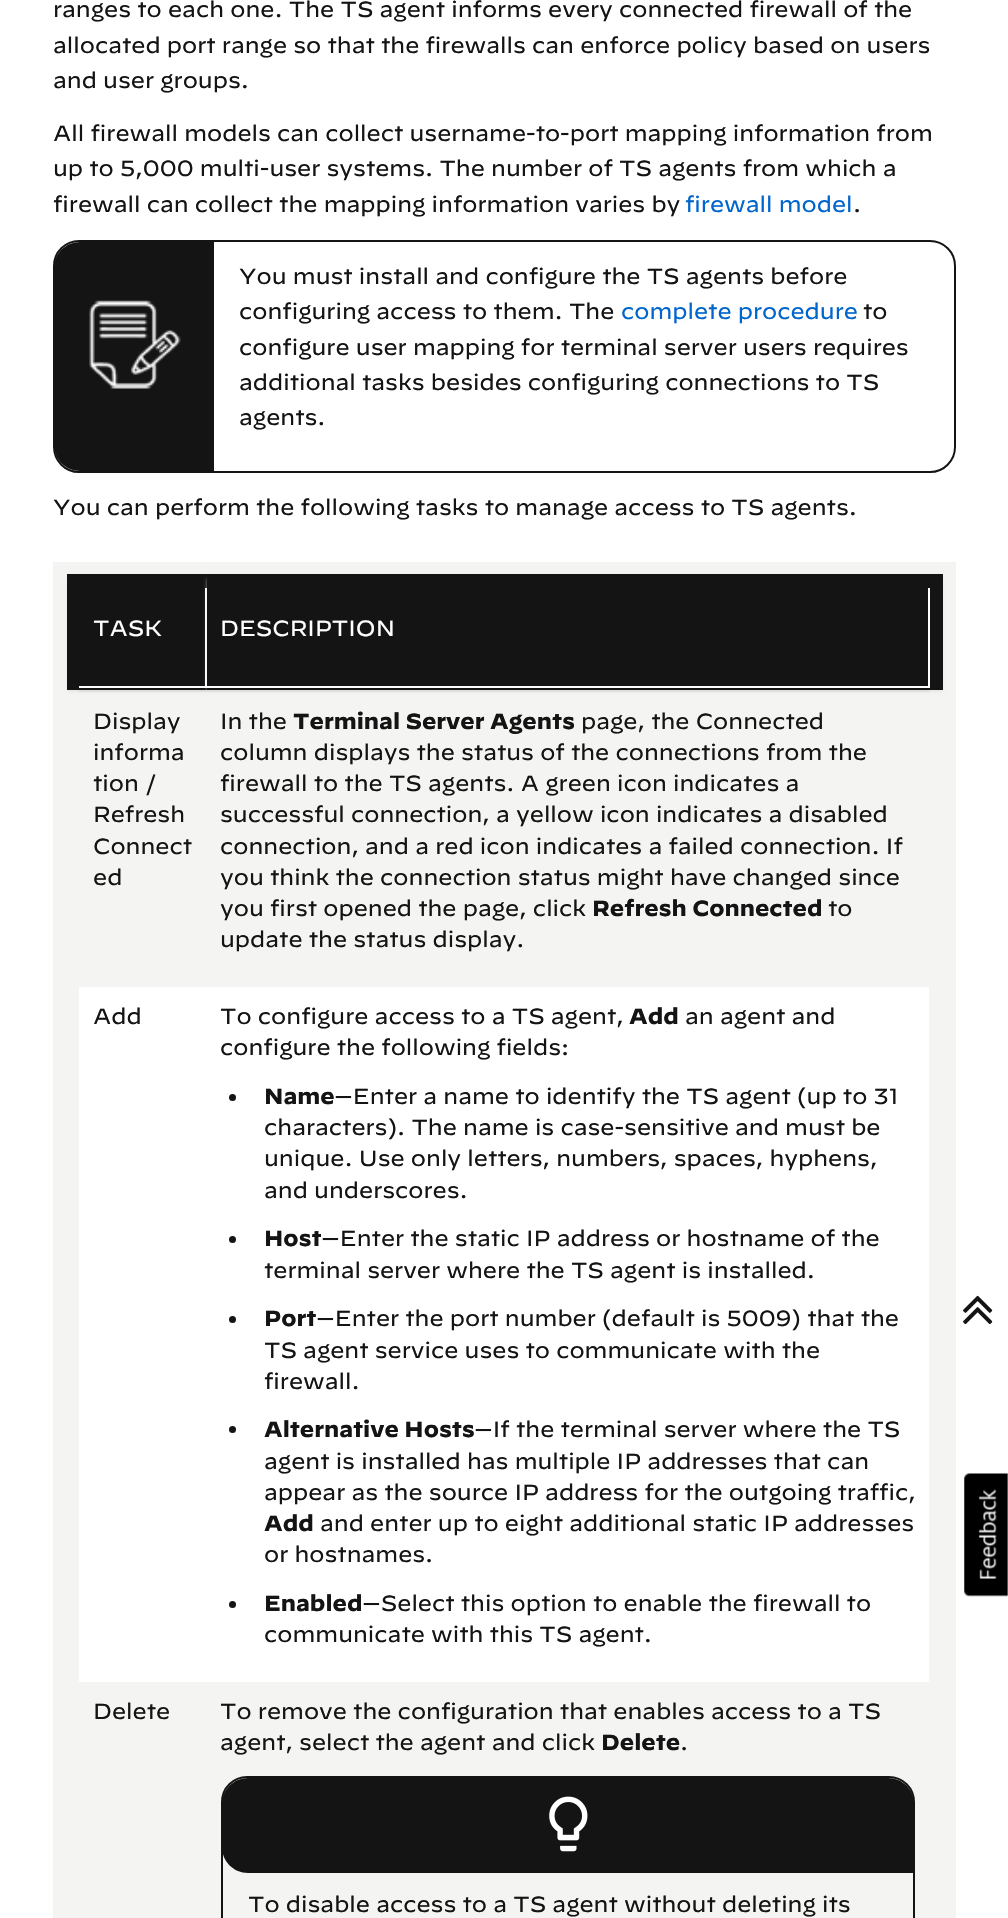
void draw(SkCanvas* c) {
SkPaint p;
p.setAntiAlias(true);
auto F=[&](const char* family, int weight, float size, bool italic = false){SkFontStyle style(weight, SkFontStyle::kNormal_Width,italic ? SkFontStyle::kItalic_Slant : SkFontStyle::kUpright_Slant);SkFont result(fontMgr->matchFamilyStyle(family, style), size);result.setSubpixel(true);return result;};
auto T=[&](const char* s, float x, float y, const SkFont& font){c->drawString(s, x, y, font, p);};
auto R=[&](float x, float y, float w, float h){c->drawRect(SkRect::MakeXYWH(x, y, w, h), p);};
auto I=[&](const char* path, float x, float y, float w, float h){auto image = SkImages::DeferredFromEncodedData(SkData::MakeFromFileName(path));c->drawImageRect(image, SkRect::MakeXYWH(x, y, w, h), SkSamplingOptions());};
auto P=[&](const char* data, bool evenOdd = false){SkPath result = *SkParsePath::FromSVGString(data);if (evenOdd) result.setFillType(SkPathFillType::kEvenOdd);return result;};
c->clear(0xffffffff);
auto f1 = F("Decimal",400,21.9);
p.setColor(0xff141414);
T("ranges to each one. The TS agent informs every connected firewall of the",53,17,f1);
T("allocated port range so that the firewalls can enforce policy based on users",53,53,f1);
T("and user groups.",53,88,f1);
T("All firewall models can collect username-to-port mapping information from",53,141,f1);
T("up to 5,000 multi-user systems. The number of TS agents from which a",53,176,f1);
T("firewall can collect the mapping information varies by",53,212,f1);
p.setColor(0xff0066cc);
T("firewall model",685,212,f1);
p.setColor(0xff141414);
T(".",853,212,f1);
p.setStroke(true);
p.setStrokeWidth(2);
c->drawRoundRect(SkRect::MakeXYWH(54,241,901,231),25,25,p);
p.setStroke(false);
c->drawPath(P("M80 242h134v229h-134c-14.5 0-26-11.5-26-26v-177c0-14.5 11.5-26 26-26z"),p);
I("1.png",89,300,92,89);
T("You must install and configure the TS agents before",239,284,f1);
T("configuring access to them. The",239,319,f1);
p.setColor(0xff0066cc);
T("complete procedure",621,319,f1);
p.setColor(0xff141414);
T("to",863,319,f1);
T("configure user mapping for terminal server users requires",239,355,f1);
T("additional tasks besides configuring connections to TS",239,390,f1);
T("agents.",239,425,f1);
T("You can perform the following tasks to manage access to TS agents.",53,515,f1);
p.setColor(0xfff4f4f2);
R(79,562,850,12);
R(929,562,27,1356);
R(53,562,26,1356);
p.setColor(0xffdddddd);
R(79,690,850,2);
p.setColor(0xfff4f4f2);
R(79,692,850,295);
p.setColor(0xffe0e0e0);
p.setMaskFilter(SkMaskFilter::MakeBlur(kNormal_SkBlurStyle, 2));
c->drawRect(SkRect::MakeXYWH(68,579,137,112),p);
p.setMaskFilter(nullptr);
p.setColor(0xff141414);
R(67,574,140,116);
p.setColor(0xffffffff);
T("TASK",93,636,f1);
R(205,588,2,100);
R(79,686,128,2);
p.setColor(0xffe0e0e0);
p.setMaskFilter(SkMaskFilter::MakeBlur(kNormal_SkBlurStyle, 2));
c->drawRect(SkRect::MakeXYWH(208,579,734,112),p);
p.setMaskFilter(nullptr);
p.setColor(0xff141414);
R(207,574,736,116);
p.setColor(0xffffffff);
T("DESCRIPTION",220,636,f1);
R(928,588,2,100);
R(207,686,722,2);
p.setColor(0xff141414);
T("Display",93,729,f1);
T("informa",93,760,f1);
T("tion /",93,791,f1);
T("Refresh",93,822,f1);
T("Connect",93,854,f1);
T("ed",93,885,f1);
T("In the",220,729,f1);
auto f2 = F("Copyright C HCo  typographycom",400,21.9);
T("Terminal Server Agents",293,729,f2);
T("page, the Connected",581,729,f1);
T("column displays the status of the connections from the",220,760,f1);
T("firewall to the TS agents. A green icon indicates a",220,791,f1);
T("successful connection, a yellow icon indicates a disabled",220,822,f1);
T("connection, and a red icon indicates a failed connection. If",220,854,f1);
T("you think the connection status might have changed since",220,885,f1);
T("you first opened the page, click",220,916,f1);
T("Refresh Connected",592,916,f2);
T("to",828,916,f1);
T("update the status display.",220,947,f1);
T("Add",93,1024,f1);
T("To configure access to a TS agent,",220,1024,f1);
T("Add",629,1024,f2);
T("an agent and",685,1024,f1);
T("configure the following fields:",220,1055,f1);
c->drawCircle(232.5,1097.5,3.5,p);
T("Name",264,1104,f2);
T("—Enter a name to identify the TS agent (up to 31",334,1104,f1);
T("characters). The name is case-sensitive and must be",264,1135,f1);
T("unique. Use only letters, numbers, spaces, hyphens,",264,1166,f1);
T("and underscores.",264,1198,f1);
c->drawCircle(232.5,1239.5,3.5,p);
T("Host",264,1246,f2);
T("—Enter the static IP address or hostname of the",321,1246,f1);
T("terminal server where the TS agent is installed.",264,1278,f1);
c->drawCircle(232.5,1319.5,3.5,p);
T("Port",264,1326,f2);
T("—Enter the port number (default is 5009) that the",316,1326,f1);
T("TS agent service uses to communicate with the",264,1358,f1);
T("firewall.",264,1389,f1);
c->drawCircle(232.5,1429.5,3.5,p);
T("Alternative Hosts",264,1437,f2);
T("—If the terminal server where the TS",474,1437,f1);
T("agent is installed has multiple IP addresses that can",264,1469,f1);
T("appear as the source IP address for the outgoing traffic,",264,1500,f1);
T("Add",264,1531,f2);
T("and enter up to eight additional static IP addresses",320,1531,f1);
T("or hostnames.",264,1562,f1);
c->drawCircle(232.5,1604.5,3.5,p);
T("Enabled",264,1611,f2);
T("—Select this option to enable the firewall to",362,1611,f1);
T("communicate with this TS agent.",264,1642,f1);
p.setColor(0xfff4f4f2);
R(79,1682,850,236);
p.setColor(0xff141414);
T("Delete",93,1719,f1);
T("To remove the configuration that enables access to a TS",220,1719,f1);
T("agent, select the agent and click",220,1750,f1);
T("Delete",601,1750,f2);
T(".",680,1750,f1);
p.setStroke(true);
c->drawRoundRect(SkRect::MakeXYWH(222,1777,692,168),25,25,p);
p.setStroke(false);
c->drawPath(P("M248 1778h640c14.5 0 26 11.5 26 26v69h-666c-14.5 0-26-11.5-26-26v-43c0-14.5 11.5-26 26-26z"),p);
I("2.png",549,1796,39,56);
T("To disable access to a TS agent without deleting its",248,1912,f1);
I("3.png",963,1295,30,30);
I("4.png",964,1473,44,124);
}
